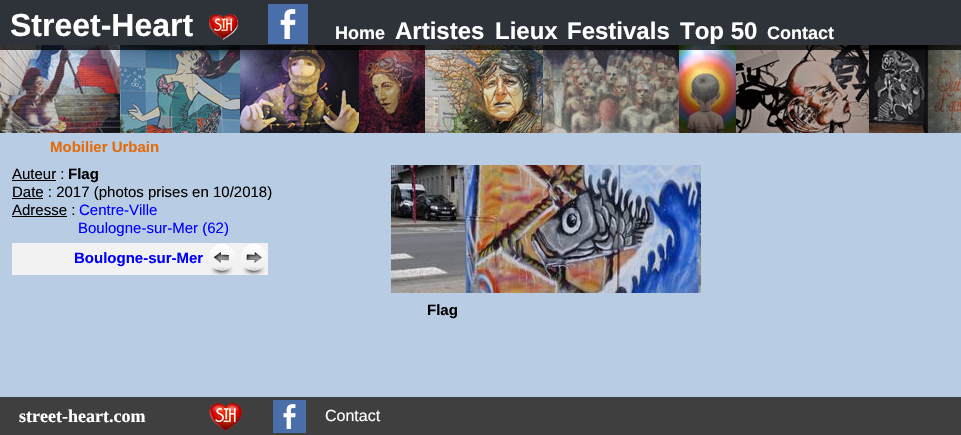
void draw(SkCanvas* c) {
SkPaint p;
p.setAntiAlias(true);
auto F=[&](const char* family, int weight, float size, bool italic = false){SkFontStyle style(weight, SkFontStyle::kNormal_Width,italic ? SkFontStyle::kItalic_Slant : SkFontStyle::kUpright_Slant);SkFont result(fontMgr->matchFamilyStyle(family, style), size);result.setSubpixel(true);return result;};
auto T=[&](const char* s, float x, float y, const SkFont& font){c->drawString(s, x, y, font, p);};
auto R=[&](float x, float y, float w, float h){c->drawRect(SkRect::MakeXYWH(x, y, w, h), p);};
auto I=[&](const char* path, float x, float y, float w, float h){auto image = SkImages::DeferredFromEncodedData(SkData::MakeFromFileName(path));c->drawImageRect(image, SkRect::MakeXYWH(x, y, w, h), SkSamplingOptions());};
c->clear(0xffb8cce4);
I("3.png",0,45,961,88);
p.setColor(0xbf000000);
R(0,0,961,50);
auto f1 = F("Liberation Sans",700,32);
p.setColor(0xffffffff);
T("Street-Heart",10,36,f1);
I("1.png",209,14,29,26);
I("2.png",268,4,40,40);
auto f2 = F("Liberation Sans",700,18);
T("Home",335,39,f2);
auto f3 = F("Liberation Sans",700,24);
T("Artistes",395,39,f3);
T("Lieux",495,39,f3);
T("Festivals",567,39,f3);
T("Top 50",680,39,f3);
T("Contact",767,39,f2);
auto f4 = F("Liberation Sans",700,15);
p.setColor(0xffe36c09);
T("Mobilier Urbain",50,152,f4);
auto f5 = F("Liberation Sans",400,15);
p.setColor(0xff000000);
T("Auteur :",12,179,f5);
R(12,180,44,1);
T("Flag",68,179,f4);
R(12,198,31,1);
T("Date : 2017 (photos prises en 10/2018)",12,197,f5);
T("Adresse :",12,215,f5);
R(12,216,55,1);
p.setColor(0xff0000ff);
T("Centre-Ville",79,215,f5);
T("Boulogne-sur-Mer (62)",78,233,f5);
p.setColor(0xfff2f2f2);
R(12,243,256,32);
p.setColor(0xff0000ff);
T("Boulogne-sur-Mer",74,263,f4);
I("4.png",209,244,26,31);
I("5.png",241,244,26,31);
I("6.png",391,165,310,128);
p.setColor(0xff000000);
T("Flag",427,315,f4);
p.setColor(0xff3f3f3f);
R(0,397,961,38);
auto f6 = F("Liberation Serif",700,18);
p.setColor(0xffffffff);
T("street-heart.com",19,422,f6);
I("7.png",209,403,33,28);
I("8.png",273,400,33,33);
auto f7 = F("Liberation Sans",400,16);
T("Contact",325,421,f7);
}
